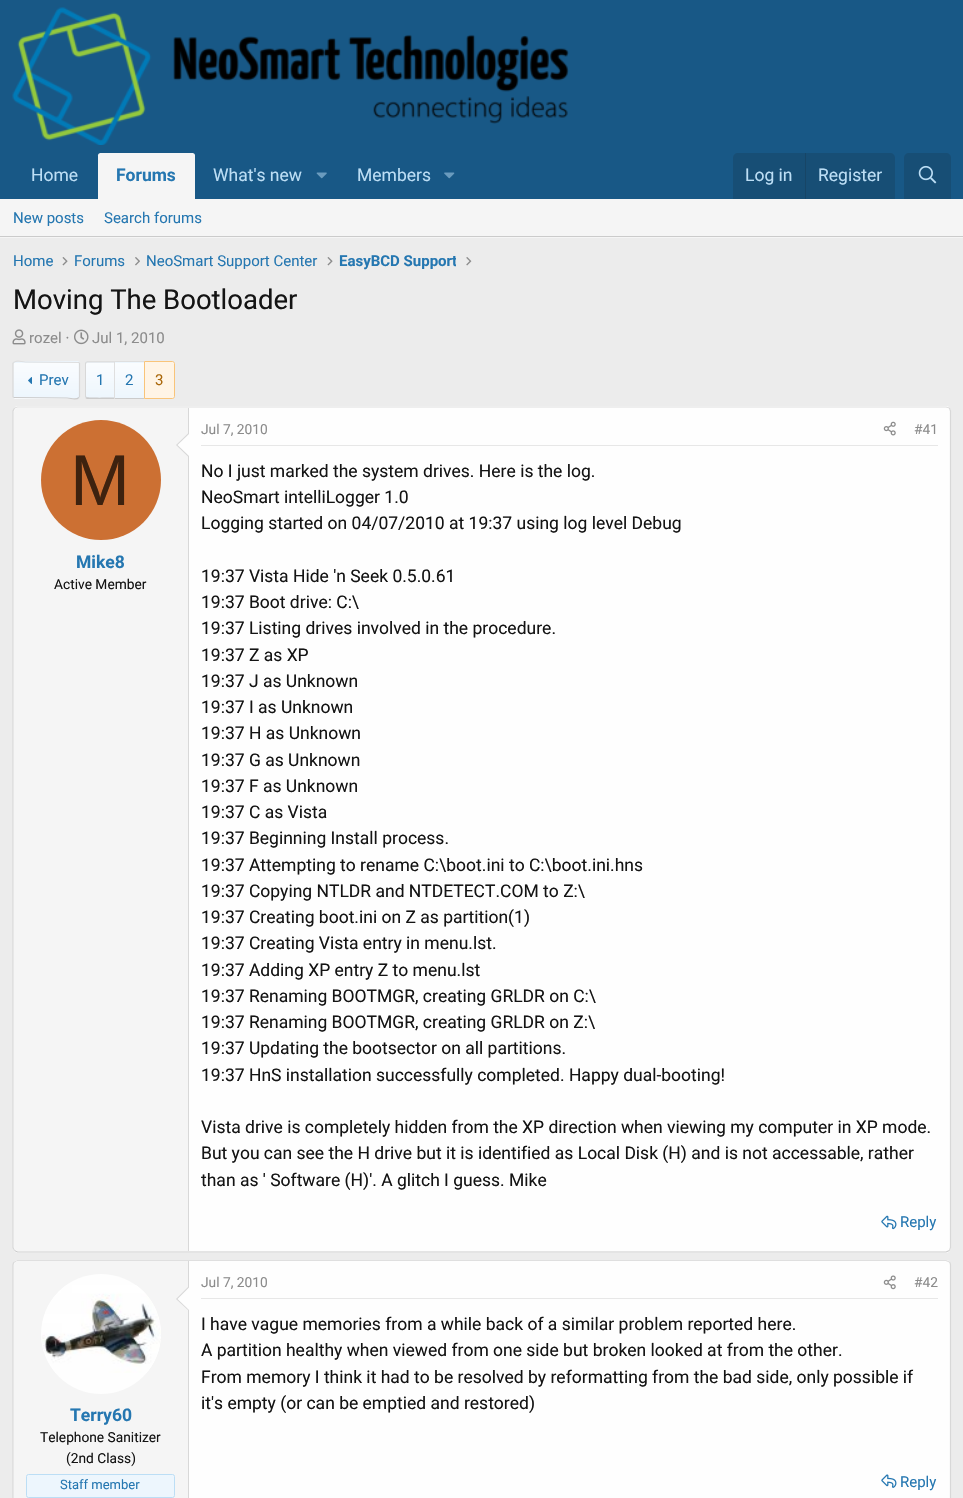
void draw(SkCanvas* c) {
SkPaint p;
p.setAntiAlias(true);
auto F=[&](const char* family, int weight, float size, bool italic = false){SkFontStyle style(weight, SkFontStyle::kNormal_Width,italic ? SkFontStyle::kItalic_Slant : SkFontStyle::kUpright_Slant);SkFont result(fontMgr->matchFamilyStyle(family, style), size);result.setSubpixel(true);return result;};
auto T=[&](const char* s, float x, float y, const SkFont& font){c->drawString(s, x, y, font, p);};
auto R=[&](float x, float y, float w, float h){c->drawRect(SkRect::MakeXYWH(x, y, w, h), p);};
auto Q=[&](float x, float y, float w, float h, float radius){c->drawRoundRect(SkRect::MakeXYWH(x, y, w, h), radius, radius, p);};
auto I=[&](const char* path, float x, float y, float w, float h){auto image = SkImages::DeferredFromEncodedData(SkData::MakeFromFileName(path));c->drawImageRect(image, SkRect::MakeXYWH(x, y, w, h), SkSamplingOptions());};
auto P=[&](const char* data, bool evenOdd = false){SkPath result = *SkParsePath::FromSVGString(data);if (evenOdd) result.setFillType(SkPathFillType::kEvenOdd);return result;};
c->clear(0xffececec);
p.setColor(0xff185886);
R(0,0,963,199);
I("1.png",12,7,557,138);
auto f1 = F("Roboto",400,17.5);
p.setColor(0xffbcdef5);
T("Home",31,181,f1);
p.setColor(0xfff5f5f5);
c->drawPath(P("M100.5 153h92c1.5 0 2.5 1 2.5 2.5v43.5h-97v-43.5c0-1.5 1-2.5 2.5-2.5z"),p);
auto f2 = F("Roboto",700,17.5);
p.setColor(0xff2577b1);
T("Forums",116,181,f2);
p.setColor(0xffbcdef5);
T("What's new",213,181,f1);
I("2.png",316,172,11,7);
T("Members",357,181,f1);
I("3.png",444,172,11,7);
p.setColor(0xff174e75);
c->drawPath(P("M738 153h152c3 0 5 2 5 5v41h-162v-41c0-3 2-5 5-5z"),p);
p.setColor(0xffbcdef5);
T("Log in",745,181,f1);
p.setColor(0xff174566);
R(805,153,1,46);
p.setColor(0xffbcdef5);
T("Register",818,181,f1);
p.setColor(0xff174e75);
c->drawPath(P("M909 153h37c3 0 5 2 5 5v41h-47v-41c0-3 2-5 5-5z"),p);
I("4.png",918,165,19,19);
p.setColor(0xfff5f5f5);
R(0,199,963,39);
p.setColor(0xffcbcbcb);
R(0,236,963,1);
auto f3 = F("Roboto",400,15);
p.setColor(0xff2577b1);
T("New posts",13,223,f3);
T("Search forums",104,223,f3);
T("Home",13,266,f3);
I("5.png",62,257,6,9);
T("Forums",74,266,f3);
I("6.png",135,257,5,9);
T("NeoSmart Support Center",146,266,f3);
I("5.png",327,257,6,9);
c->save();
c->clipRect(SkRect::MakeXYWH(339,250,117,23));
auto f4 = F("Roboto",700,15);
T("EasyBCD Support",339,266,f4);
c->restore();
I("7.png",466,257,6,9);
auto f5 = F("Roboto",400,27.5);
p.setColor(0xff141414);
T("Moving The Bootloader",13,309,f5);
I("8.png",12,329,14,16);
p.setColor(0xff8c8c8c);
T("rozel ·",29,343,f3);
I("9.png",74,329,15,16);
T("Jul 1, 2010",92,343,f3);
c->save();
c->clipPath(P("M15.5 361h62c1.5 0 2.5 1 2.5 2.5v33c0 1.5-1 2.5-2.5 2.5h-62c-1.5 0-2.5-1-2.5-2.5v-33c0-1.5 1-2.5 2.5-2.5z"),true);
{
const SkColor colors[] = {0xffedf6fd,0xfffafcfe};
const float stops[] = {0,1};
const SkPoint ends[] = {{46,363}, {46,328}};
p.setShader(SkGradientShader::MakeLinear(ends, colors, stops, 2, SkTileMode::kClamp));
p.setAlpha(255);
}
R(13,361,67,2);
c->restore();
{
const SkColor colors[] = {0xffedf6fd,0xfffafcfe};
const float stops[] = {0,1};
const SkPoint ends[] = {{46,398}, {46,363}};
p.setShader(SkGradientShader::MakeLinear(ends, colors, stops, 2, SkTileMode::kClamp));
p.setAlpha(255);
}
R(13,363,67,35);
c->save();
c->clipPath(P("M15.5 361h62c1.5 0 2.5 1 2.5 2.5v33c0 1.5-1 2.5-2.5 2.5h-62c-1.5 0-2.5-1-2.5-2.5v-33c0-1.5 1-2.5 2.5-2.5z"),true);
{
const SkColor colors[] = {0xffedf6fd,0xfffafcfe};
const float stops[] = {0,1};
const SkPoint ends[] = {{46,433}, {46,398}};
p.setShader(SkGradientShader::MakeLinear(ends, colors, stops, 2, SkTileMode::kClamp));
p.setAlpha(255);
}
R(13,398,67,1);
c->restore();
p.setStroke(true);
p.setStrokeWidth(1.2);
p.setShader(nullptr);
p.setColor(0xffdfdfdf);
c->drawPath(P("M13.5 362.5c3-3 8-.5 12-.5l53.5 .5"),p);
p.setColor(0xffd8d8d8);
c->drawPath(P("M79 362.5l.5 1v33l-.5 1"),p);
p.setColor(0xffcbcbcb);
c->drawPath(P("M79 397.5c-3 3-8 .5-12 .5l-53.5-.5"),p);
p.setColor(0xffd8d8d8);
c->drawPath(P("M13.5 397.5l-.5-1v-33l.5-1"),p);
I("10.png",28,377,4,7);
p.setStroke(false);
p.setColor(0xff2577b1);
T("Prev",39,385,f3);
c->save();
c->clipPath(P("M87.5 361h26.5v38h-26.5c-1.5 0-2.5-1-2.5-2.5v-33c0-1.5 1-2.5 2.5-2.5z"),true);
{
const SkColor colors[] = {0xffedf6fd,0xfffafcfe};
const float stops[] = {0,1};
const SkPoint ends[] = {{100,363}, {100,328}};
p.setShader(SkGradientShader::MakeLinear(ends, colors, stops, 2, SkTileMode::kClamp));
p.setAlpha(255);
}
R(85,361,29,2);
c->restore();
{
const SkColor colors[] = {0xffedf6fd,0xfffafcfe};
const float stops[] = {0,1};
const SkPoint ends[] = {{100,398}, {100,363}};
p.setShader(SkGradientShader::MakeLinear(ends, colors, stops, 2, SkTileMode::kClamp));
p.setAlpha(255);
}
R(85,363,29,35);
p.setShader(nullptr);
p.setColor(0xffdfdfdf);
c->drawPath(P("M87.5 362.5l-1 .5l-1-1l1.5-1h27v1.5z"),p);
p.setColor(0xffcbcbcb);
c->drawPath(P("M114 399h-27l-1-.5l-.5-.5l1-1c1.5 1 24 .5 27.5 .5z"),p);
p.setColor(0xffd8d8d8);
c->drawPath(P("M85 363v34l.5 1l1-1l-.5-1v-32l.5-1l-1-1z"),p);
p.setColor(0xff2577b1);
T("1",96,385,f3);
{
const SkColor colors[] = {0xffedf6fd,0xfffafcfe};
const float stops[] = {0,1};
const SkPoint ends[] = {{129,363}, {129,328}};
p.setShader(SkGradientShader::MakeLinear(ends, colors, stops, 2, SkTileMode::kClamp));
p.setAlpha(255);
}
R(114,362,30,1);
{
const SkColor colors[] = {0xffedf6fd,0xfffafcfe};
const float stops[] = {0,1};
const SkPoint ends[] = {{129,398}, {129,363}};
p.setShader(SkGradientShader::MakeLinear(ends, colors, stops, 2, SkTileMode::kClamp));
p.setAlpha(255);
}
R(115,363,29,35);
p.setShader(nullptr);
p.setColor(0xffdfdfdf);
R(114,361,30,1);
p.setColor(0xffcbcbcb);
R(114,398,30,1);
p.setColor(0xffdfdfdf);
R(114,361,1,38);
p.setColor(0xff2577b1);
T("2",125,385,f3);
p.setColor(0xfffff4e5);
c->drawPath(P("M144.5 361.5h28c1 0 2 1 2 2v33c0 1-1 2-2 2h-28z"),p);
p.setStroke(true);
p.setStrokeWidth(1);
p.setColor(0xfff9c479);
c->drawPath(P("M144.5 361.5h28c1 0 2 1 2 2v33c0 1-1 2-2 2h-28z"),p);
p.setStroke(false);
p.setColor(0xffaa6709);
T("3",155,385,f3);
p.setColor(0xfffefefe);
Q(13,406,938,847,5);
p.setStroke(true);
p.setStrokeWidth(1.2);
p.setColor(0xffdfdfdf);
c->drawPath(P("M14.5 408l3-1h928.5l3.5 1"),p);
p.setColor(0xffd8d8d8);
c->drawPath(P("M949.5 408l1 3v836.5l-1 3"),p);
p.setColor(0xffcbcbcb);
c->drawPath(P("M949.5 1250.5l-3.5 1.5h-928.5l-3-1.5"),p);
p.setColor(0xffd8d8d8);
c->drawPath(P("M14.5 1250.5l-1.5-3v-836.5l1.5-3"),p);
p.setStroke(false);
p.setColor(0xfff5f5f5);
c->drawPath(P("M18 408h171v843h-171c-2 0-4-2-4-4v-835c0-2 2-4 4-4z"),p);
p.setColor(0xffd8d8d8);
R(188,408,1,843);
c->drawPath(P("M189 432.5v25l-13-12.5z"),p);
p.setColor(0xfffefefe);
c->drawPath(P("M189 434v22l-11.5-11z"),p);
p.setColor(0xffcc7033);
c->drawCircle(101,480,60,p);
auto f6 = F("Liberation Sans",400,72);
p.setColor(0xff3d220f);
T("M",70,505,f6);
p.setColor(0xff2577b1);
T("Mike8",76,568,f2);
auto f7 = F("Roboto",400,13.75);
p.setColor(0xff141414);
T("Active Member",54,589,f7);
p.setColor(0xffe7e7e7);
R(201,445,737,1);
p.setColor(0xff8c8c8c);
T("Jul 7, 2010",201,434,f7);
I("11.png",883,421,13,15);
T("#41",914,434,f7);
p.setColor(0xff141414);
T("No I just marked the system drives. Here is the log.",201,477,f1);
T("NeoSmart intelliLogger 1.0",201,503,f1);
T("Logging started on 04/07/2010 at 19:37 using log level Debug",201,529,f1);
T("19:37 Vista Hide 'n Seek 0.5.0.61",201,582,f1);
T("19:37 Boot drive: C:\\",201,608,f1);
T("19:37 Listing drives involved in the procedure.",201,634,f1);
T("19:37 Z as XP",201,661,f1);
T("19:37 J as Unknown",201,687,f1);
T("19:37 I as Unknown",201,713,f1);
T("19:37 H as Unknown",201,739,f1);
T("19:37 G as Unknown",201,766,f1);
T("19:37 F as Unknown",201,792,f1);
T("19:37 C as Vista",201,818,f1);
T("19:37 Beginning Install process.",201,844,f1);
T("19:37 Attempting to rename C:\\boot.ini to C:\\boot.ini.hns",201,871,f1);
T("19:37 Copying NTLDR and NTDETECT.COM to Z:\\",201,897,f1);
T("19:37 Creating boot.ini on Z as partition(1)",201,923,f1);
T("19:37 Creating Vista entry in menu.lst.",201,949,f1);
T("19:37 Adding XP entry Z to menu.lst",201,976,f1);
T("19:37 Renaming BOOTMGR, creating GRLDR on C:\\",201,1002,f1);
T("19:37 Renaming BOOTMGR, creating GRLDR on Z:\\",201,1028,f1);
T("19:37 Updating the bootsector on all partitions.",201,1054,f1);
T("19:37 HnS installation successfully completed. Happy dual-booting!",201,1081,f1);
T("Vista drive is completely hidden from the XP direction when viewing my computer in XP mode.",201,1133,f1);
T("But you can see the H drive but it is identified as Local Disk (H) and is not accessable, rather",201,1159,f1);
T("than as ' Software (H)'. A glitch I guess. Mike",201,1186,f1);
I("12.png",881,1215,16,15);
p.setColor(0xff2577b1);
T("Reply",900,1227,f3);
p.setColor(0xfffefefe);
Q(13,1260,938,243,5);
p.setStroke(true);
p.setColor(0xffdfdfdf);
c->drawPath(P("M14.5 1262l3-1.5h928.5l3.5 1.5"),p);
p.setColor(0xffd8d8d8);
c->drawPath(P("M949.5 1262c.5 .5 1 2 1 3v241c0 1.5-.5 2.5-1 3.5"),p);
c->drawPath(P("M14.5 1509.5c-1-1-1.5-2-1.5-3.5v-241c0-1 .5-2.5 1.5-3"),p);
p.setStroke(false);
p.setColor(0xfff5f5f5);
c->drawPath(P("M18 1261h171v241h-171c-2 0-4-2-4-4v-233c0-2 2-4 4-4z"),p);
p.setColor(0xffd8d8d8);
R(188,1261,1,237);
p.setColor(0xfffefefe);
c->drawCircle(101,1334,60,p);
I("13.png",42,1285,119,88);
p.setColor(0xffd8d8d8);
c->drawPath(P("M189 1286v25l-13-12z"),p);
p.setColor(0xfffefefe);
c->drawPath(P("M189 1287.5v22.5l-11.5-11z"),p);
p.setColor(0xff2577b1);
T("Terry60",70,1421,f2);
p.setColor(0xff141414);
T("Telephone Sanitizer",40,1442,f7);
T("(2nd Class)",66,1463,f7);
p.setColor(0xffedf6fd);
c->drawRoundRect(SkRect::MakeXYWH(26.5,1474.5,148,23),2,2,p);
p.setStroke(true);
p.setStrokeWidth(1);
p.setColor(0xffbcdef5);
c->drawRoundRect(SkRect::MakeXYWH(26.5,1474.5,148,23),2,2,p);
auto f8 = F("Roboto",400,13);
p.setStroke(false);
p.setColor(0xff2577b1);
T("Staff member",60,1489,f8);
p.setColor(0xffe7e7e7);
R(201,1298,737,1);
p.setColor(0xff8c8c8c);
T("Jul 7, 2010",201,1287,f7);
I("14.png",883,1275,13,15);
T("#42",914,1287,f7);
p.setColor(0xff141414);
T("I have vague memories from a while back of a similar problem reported here.",201,1330,f1);
T("A partition healthy when viewed from one side but broken looked at from the other.",201,1356,f1);
T("From memory I think it had to be resolved by reformatting from the bad side, only possible if",201,1383,f1);
T("it's empty (or can be emptied and restored)",201,1409,f1);
I("15.png",881,1474,16,14);
p.setColor(0xff2577b1);
T("Reply",900,1487,f3);
}
